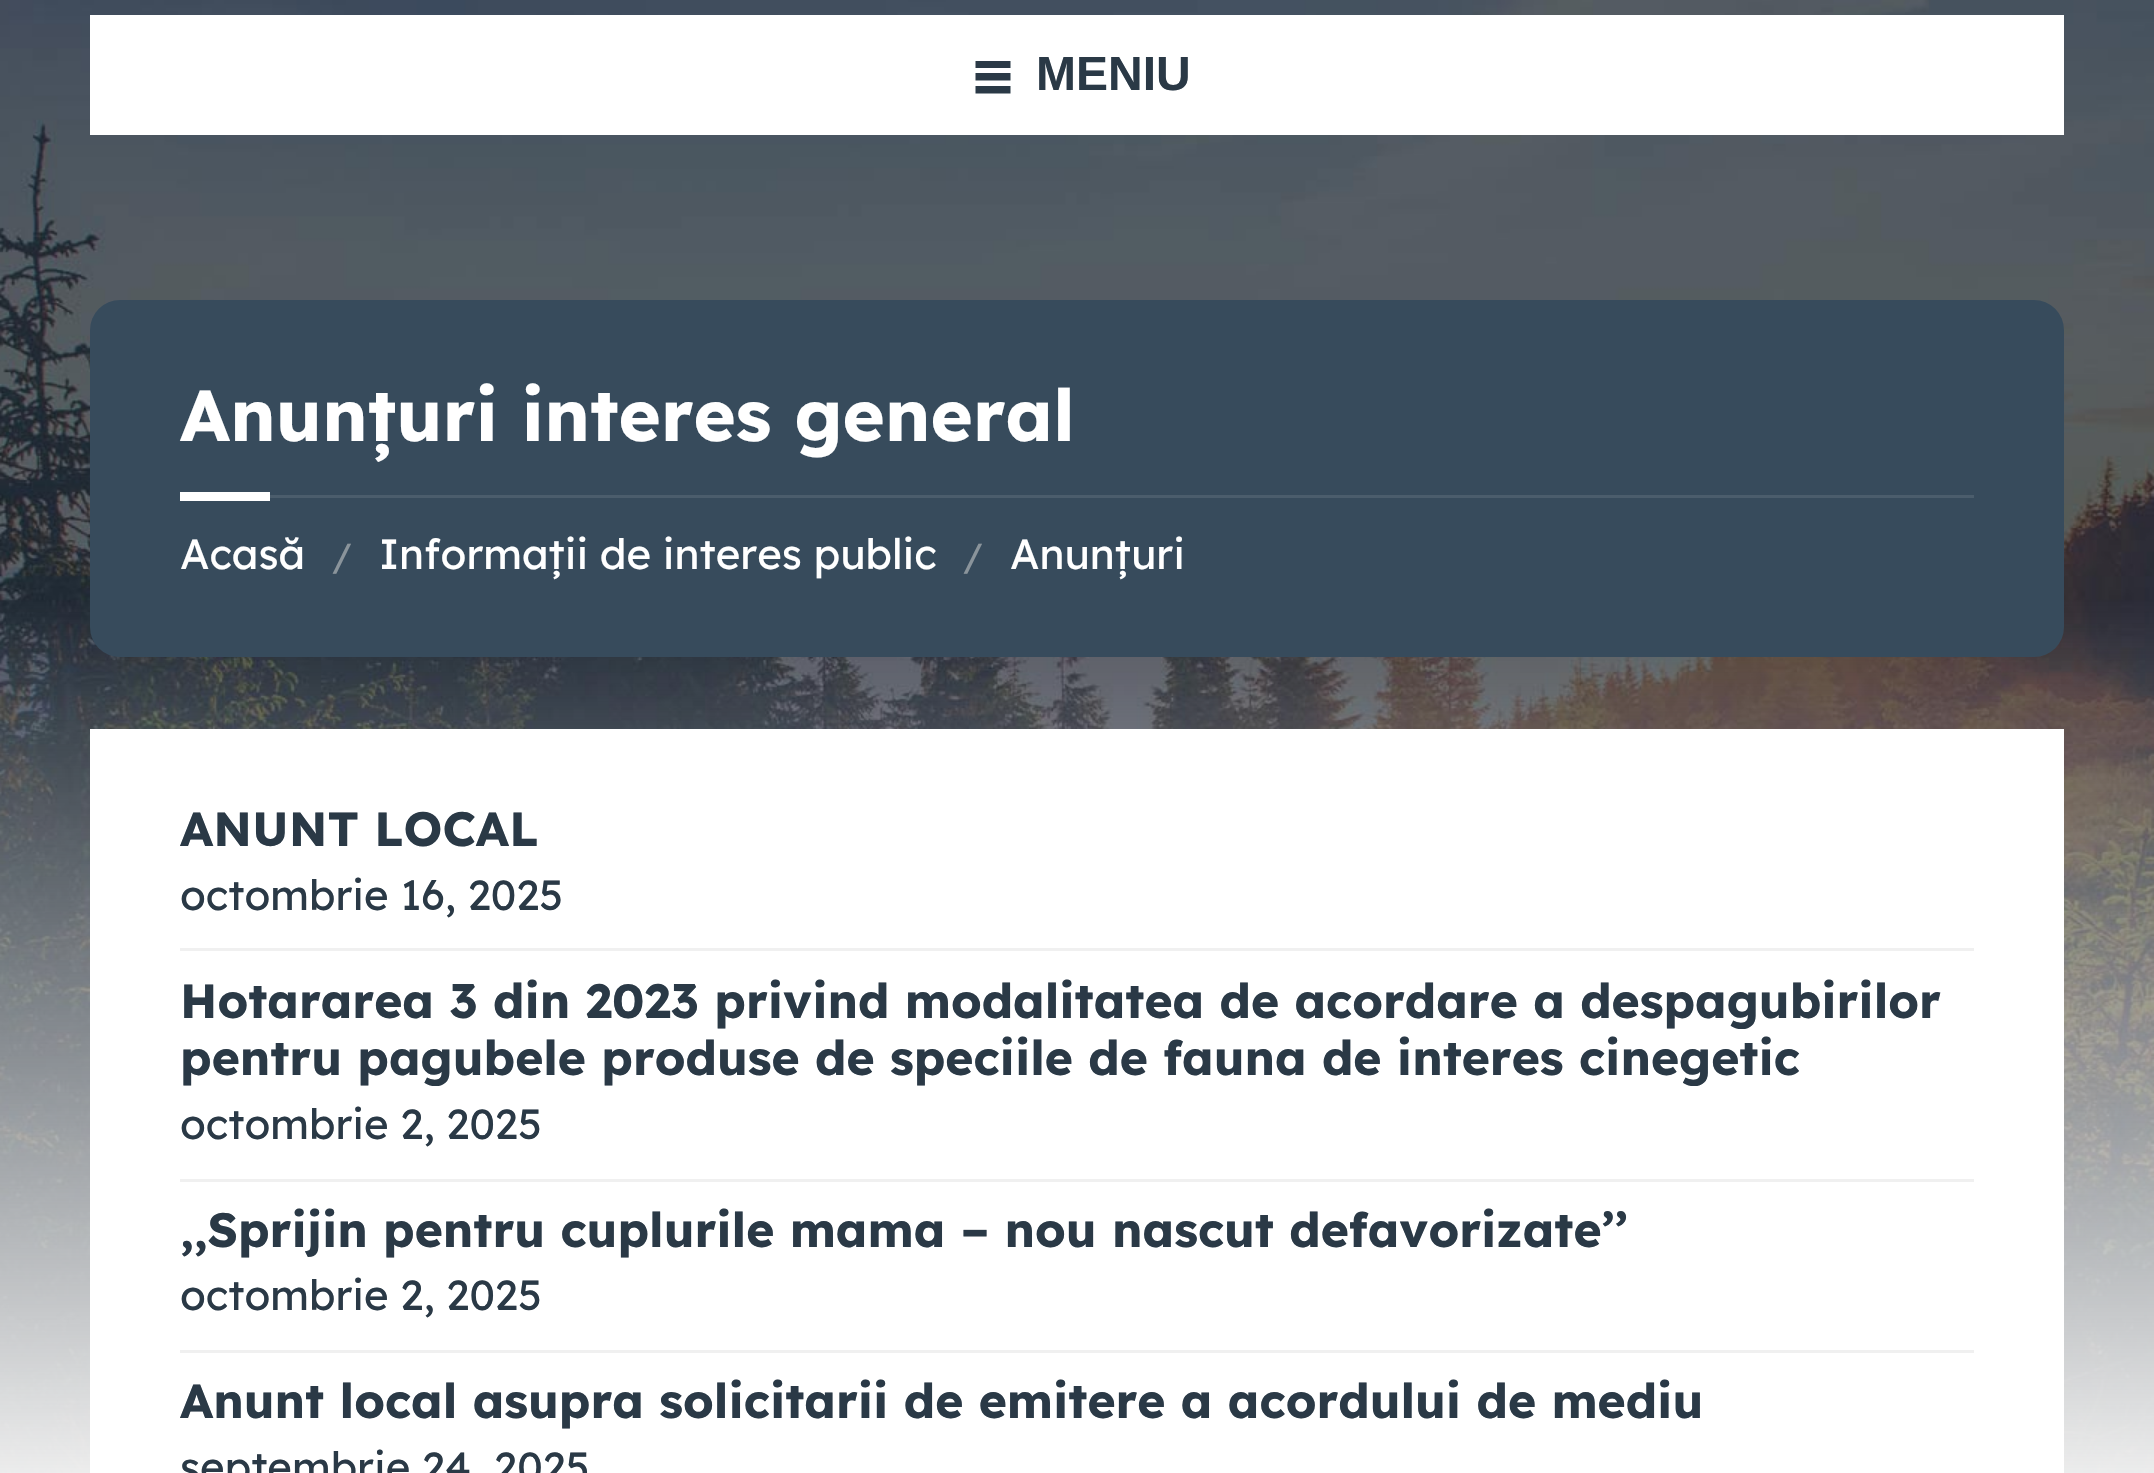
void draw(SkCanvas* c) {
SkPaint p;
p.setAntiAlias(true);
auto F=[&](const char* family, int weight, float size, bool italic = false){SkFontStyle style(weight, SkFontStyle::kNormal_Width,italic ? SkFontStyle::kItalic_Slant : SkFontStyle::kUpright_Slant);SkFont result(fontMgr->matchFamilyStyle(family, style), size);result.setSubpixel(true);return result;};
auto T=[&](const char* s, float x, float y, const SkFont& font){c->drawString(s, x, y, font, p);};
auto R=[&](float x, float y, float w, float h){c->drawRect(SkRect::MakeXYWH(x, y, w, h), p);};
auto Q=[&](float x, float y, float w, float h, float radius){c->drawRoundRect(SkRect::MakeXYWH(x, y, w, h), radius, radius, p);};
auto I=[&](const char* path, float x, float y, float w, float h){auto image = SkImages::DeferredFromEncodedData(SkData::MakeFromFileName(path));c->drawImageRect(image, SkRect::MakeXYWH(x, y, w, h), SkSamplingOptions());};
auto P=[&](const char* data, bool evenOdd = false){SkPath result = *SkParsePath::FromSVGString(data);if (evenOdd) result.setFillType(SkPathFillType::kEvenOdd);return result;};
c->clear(0xffffffff);
I("1.png",0,0,2154,1473);
p.setColor(0xffffffff);
R(90,15,1974,120);
p.setColor(0xff2a3946);
c->drawPath(P("M975.5 86h35v7.5h-35zm0-13h35v7.5h-35zm0-12h35v7h-35z"),p);
auto f1 = F("Liberation Sans",700,48);
T("MENIU",1036,90,f1);
p.setColor(0xff374b5c);
Q(90,300,1974,357,30);
auto f2 = F("Lexend Deca",700,72);
p.setColor(0xffffffff);
T("Anunțuri interes general",180,441,f2);
p.setColor(0xff4b5d6c);
R(270,495,1704,3);
p.setColor(0xffffffff);
R(180,492,90,9);
auto f3 = F("Lexend Deca",400,42);
T("Acasă",180,569,f3);
auto f4 = F("Lexend Deca",400,36);
p.setColor(0xff8a949b);
T("/",332,569,f4);
p.setColor(0xffffffff);
T("Informații de interes public",379,569,f3);
p.setColor(0xff8a949b);
T("/",963,569,f4);
p.setColor(0xffffffff);
T("Anunțuri",1010,569,f3);
R(90,729,1974,744);
auto f5 = F("Lexend Deca",700,48);
p.setColor(0xff2a3946);
T("ANUNT LOCAL",180,846,f5);
T("octombrie 16, 2025",180,910,f3);
p.setColor(0xfff0f0f0);
R(180,948,1794,3);
p.setColor(0xff2a3946);
T("Hotararea 3 din 2023 privind modalitatea de acordare a despagubirilor",180,1018,f5);
T("pentru pagubele produse de speciile de fauna de interes cinegetic",180,1075,f5);
T("octombrie 2, 2025",180,1139,f3);
p.setColor(0xfff0f0f0);
R(180,1179,1794,3);
p.setColor(0xff2a3946);
T(",,Sprijin pentru cuplurile mama – nou nascut defavorizate’’",180,1247,f5);
T("octombrie 2, 2025",180,1310,f3);
p.setColor(0xfff0f0f0);
R(180,1350,1794,3);
p.setColor(0xff2a3946);
T("Anunt local asupra solicitarii de emitere a acordului de mediu",180,1418,f5);
T("septembrie 24, 2025",180,1482,f3);
}
